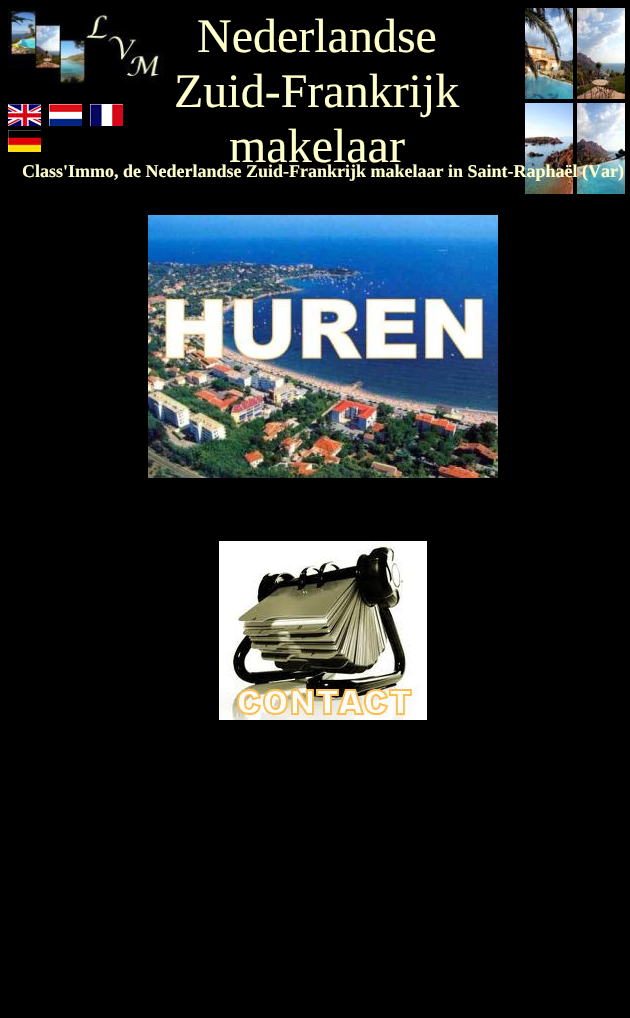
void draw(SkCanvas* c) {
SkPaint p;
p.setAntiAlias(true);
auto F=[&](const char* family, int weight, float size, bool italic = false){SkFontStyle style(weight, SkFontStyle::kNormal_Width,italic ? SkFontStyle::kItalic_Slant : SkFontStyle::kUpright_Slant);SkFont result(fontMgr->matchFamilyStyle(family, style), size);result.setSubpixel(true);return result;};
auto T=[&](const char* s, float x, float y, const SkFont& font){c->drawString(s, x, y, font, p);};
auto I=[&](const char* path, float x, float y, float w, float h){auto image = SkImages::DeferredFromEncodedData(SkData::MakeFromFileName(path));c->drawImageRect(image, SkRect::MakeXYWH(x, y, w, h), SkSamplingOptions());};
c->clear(0xff000000);
I("1.png",8,8,156,76);
I("2.png",8,104,33,22);
I("3.png",49,104,33,22);
I("4.png",90,104,33,22);
I("5.png",8,130,33,22);
auto f1 = F("Liberation Serif",400,48);
p.setColor(0xffffffcc);
T("Nederlandse",197,52,f1);
T("Zuid-Frankrijk",174,107,f1);
T("makelaar",229,162,f1);
I("6.png",525,8,48,91);
I("7.png",577,8,48,91);
I("8.png",525,103,48,91);
I("9.png",577,103,48,91);
auto f2 = F("Liberation Serif",700,18);
T("Class'Immo, de Nederlandse Zuid-Frankrijk makelaar in Saint-Raphaël (Var)",22,177,f2);
I("10.png",148,215,350,263);
I("11.png",219,541,208,179);
}
